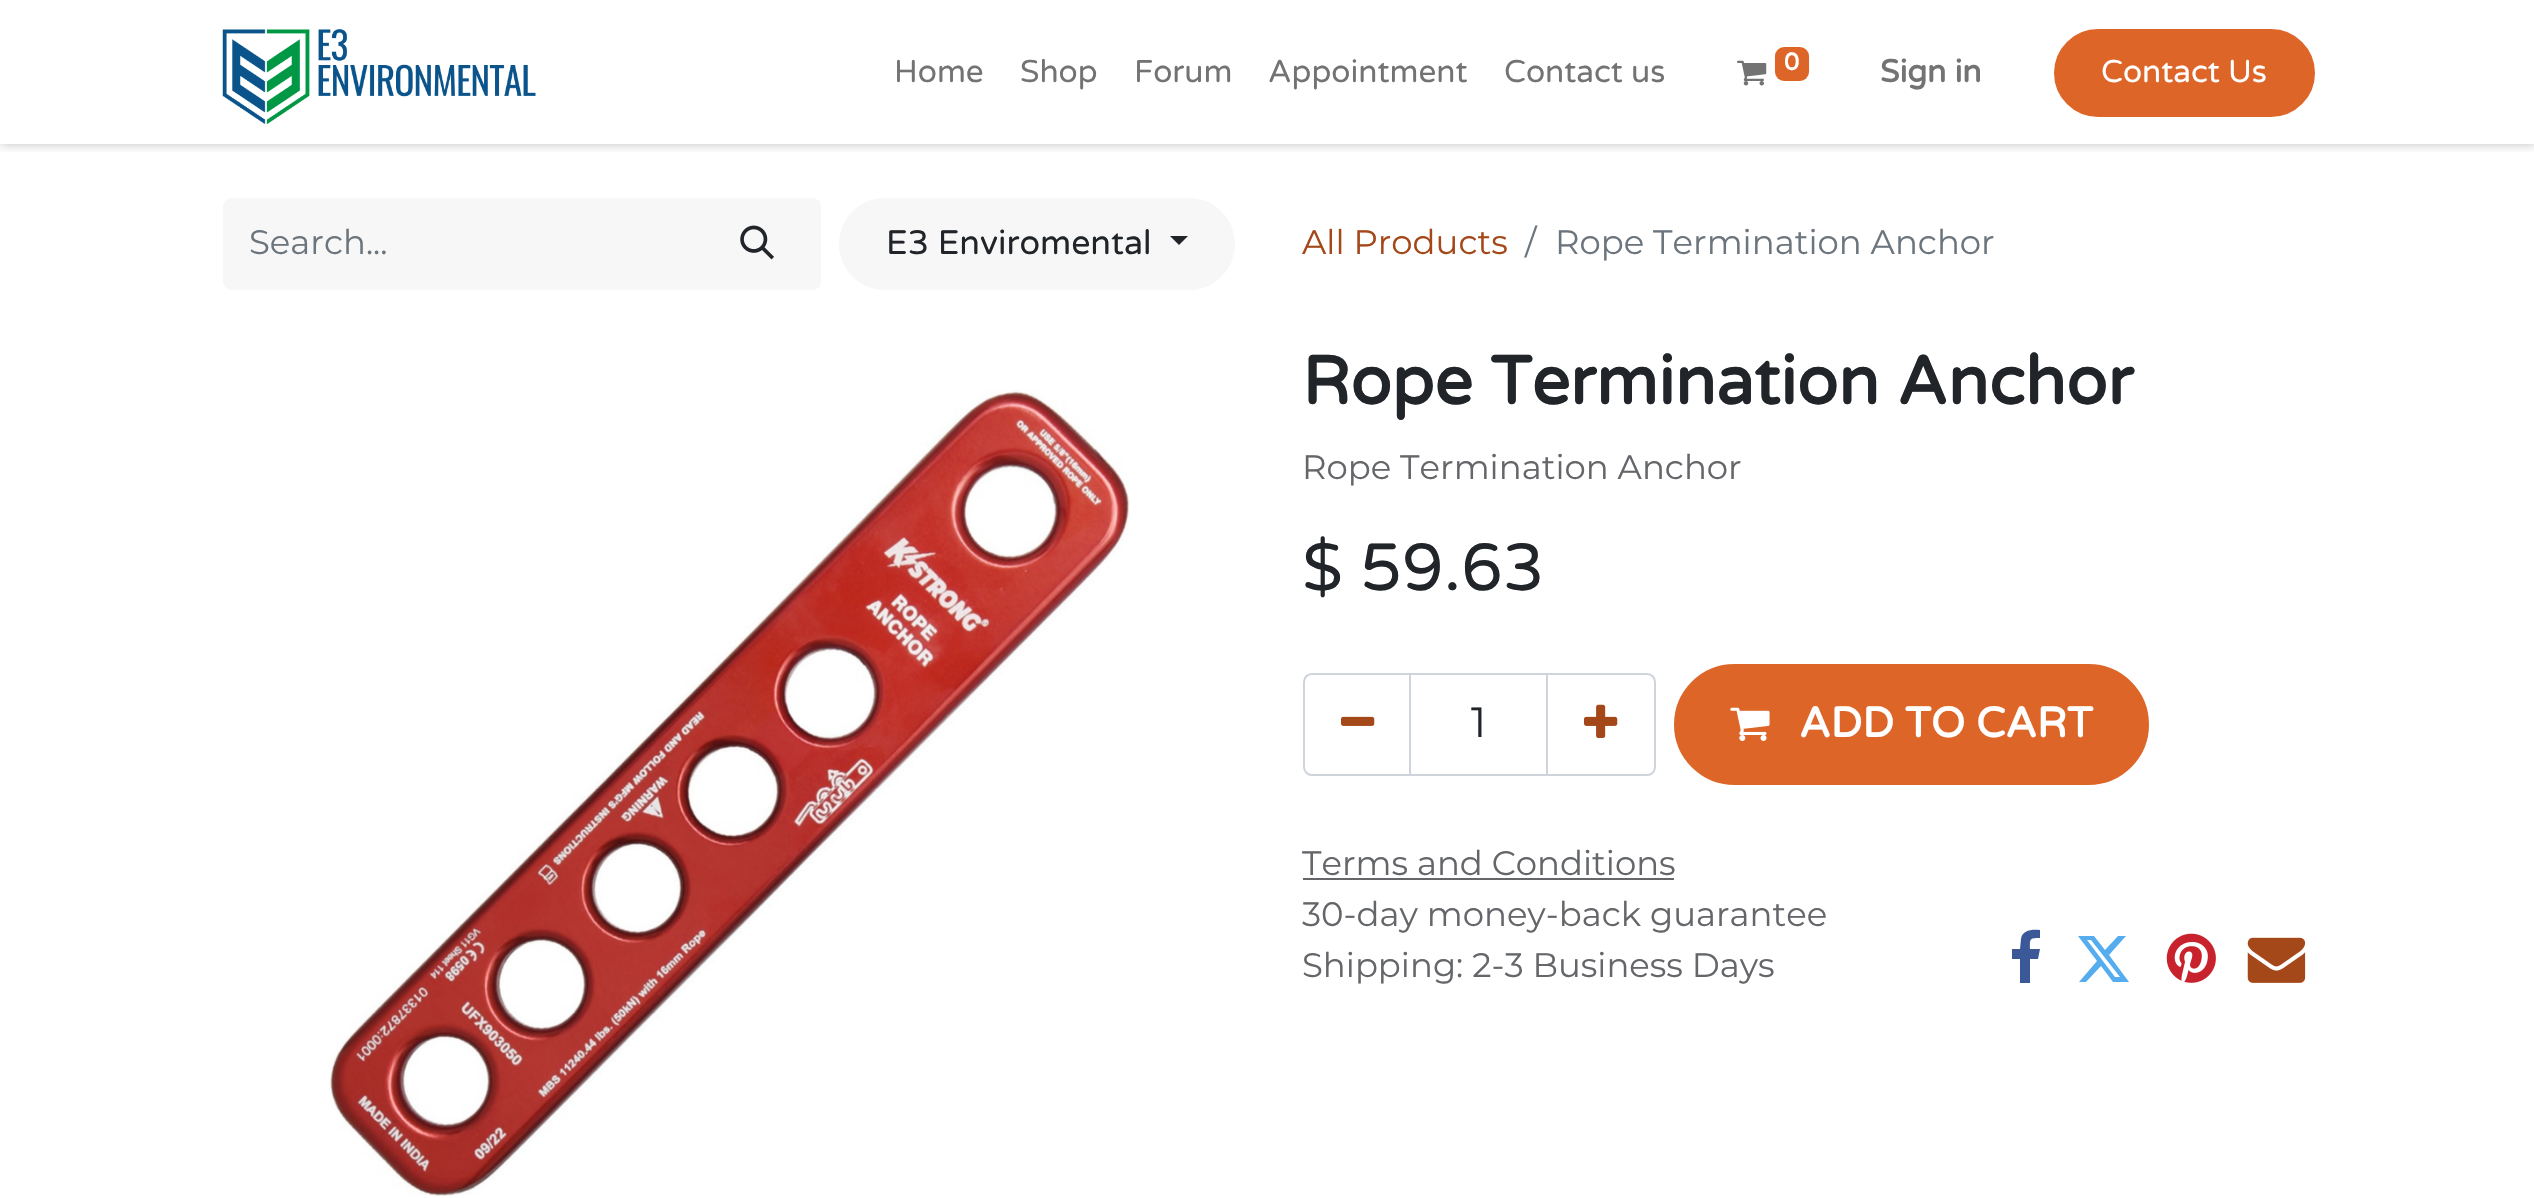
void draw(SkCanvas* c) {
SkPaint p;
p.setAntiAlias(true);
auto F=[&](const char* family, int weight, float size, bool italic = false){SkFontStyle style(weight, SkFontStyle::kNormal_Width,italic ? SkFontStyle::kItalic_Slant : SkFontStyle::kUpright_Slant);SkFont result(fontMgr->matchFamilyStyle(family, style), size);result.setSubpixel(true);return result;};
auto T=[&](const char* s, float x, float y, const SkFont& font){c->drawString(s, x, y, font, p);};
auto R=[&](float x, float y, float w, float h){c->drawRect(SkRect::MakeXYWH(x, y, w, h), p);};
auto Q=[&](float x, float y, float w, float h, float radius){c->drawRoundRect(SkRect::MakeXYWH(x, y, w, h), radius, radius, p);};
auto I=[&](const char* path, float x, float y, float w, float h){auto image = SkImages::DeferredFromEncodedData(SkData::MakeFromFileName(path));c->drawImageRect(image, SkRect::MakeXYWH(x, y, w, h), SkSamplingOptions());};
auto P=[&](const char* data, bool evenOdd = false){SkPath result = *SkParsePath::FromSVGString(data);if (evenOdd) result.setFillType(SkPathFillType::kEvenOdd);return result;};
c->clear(0xffffffff);
c->save();
c->clipRect(SkRect::MakeXYWH(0,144,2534,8));
p.setColor(0x40000000);
p.setMaskFilter(SkMaskFilter::MakeBlur(kNormal_SkBlurStyle, 5.5));
c->drawRect(SkRect::MakeXYWH(0,0,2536,144),p);
p.setMaskFilter(nullptr);
c->restore();
I("1.png",222,29,314,95);
auto f1 = F("Varela Round",400,31.5);
p.setColor(0xff737373);
T("Home",894,82,f1);
T("Shop",1020,82,f1);
T("Forum",1134,82,f1);
T("Appointment",1268,82,f1);
T("Contact us",1504,82,f1);
I("2.png",1737,60,30,26);
p.setColor(0xffde6528);
Q(1775,47,34,34,9);
auto f2 = F("Varela Round",700,24);
p.setColor(0xffffffff);
T("0",1784,70,f2);
auto f3 = F("Varela Round",700,31.5);
p.setColor(0xff737373);
T("Sign in",1880,82,f3);
p.setColor(0xffde6528);
c->drawRoundRect(SkRect::MakeXYWH(2055,30,259,86),43,43,p);
p.setStroke(true);
p.setStrokeWidth(2);
c->drawRoundRect(SkRect::MakeXYWH(2055,30,259,86),43,43,p);
p.setStroke(false);
p.setColor(0xffffffff);
T("Contact Us",2101,82,f1);
p.setColor(0xfff7f7f7);
c->drawPath(P("M232 198h463v92h-463c-5 0-9-4-9-9v-74c0-5 4-9 9-9z"),p);
auto f4 = F("Montserrat",400,33.9);
p.setColor(0xff6c757d);
T("Search...",249,254,f4);
p.setColor(0xfff7f7f7);
c->drawPath(P("M693 198h119c5 0 9 4 9 9v74c0 5-4 9-9 9h-119z"),p);
I("3.png",740,225,34,35);
Q(839,198,396,92,46);
auto f5 = F("Varela Round",400,33.9);
p.setColor(0xff212529);
T("E3 Enviromental",886,254,f5);
c->drawPath(P("M1170 236h18l-9 9z"),p);
p.setColor(0xffa54819);
T("All Products",1302,254,f4);
p.setColor(0xff6c757d);
T("/",1525,254,f4);
T("Rope Termination Anchor",1555,254,f4);
I("4.png",329,389,801,807);
auto f6 = F("Varela Round",700,67.75);
p.setColor(0xff212529);
T("Rope Termination Anchor",1302,404,f6);
p.setColor(0xff646669);
T("Rope Termination Anchor",1302,479,f4);
auto f7 = F("Varela Round",400,66.5);
p.setColor(0xff212529);
T("$ 59.63",1302,590,f7);
p.setStroke(true);
p.setColor(0xffced4da);
c->drawRect(SkRect::MakeXYWH(1410,674,137,101),p);
c->drawPath(P("M1312 674h98v101h-98c-4.5 0-8-3.5-8-8v-85c0-4.5 3.5-8 8-8z"),p);
I("5.png",1341,716,34,10);
auto f8 = F("Montserrat",400,42.25);
p.setStroke(false);
p.setColor(0xff212529);
T("1",1471,737,f8);
p.setStroke(true);
p.setColor(0xffced4da);
c->drawPath(P("M1547 674h100c4.5 0 8 3.5 8 8v85c0 4.5-3.5 8-8 8h-100z"),p);
I("6.png",1584,704,34,34);
p.setStroke(false);
p.setColor(0xffde6528);
c->drawRoundRect(SkRect::MakeXYWH(1675,665,473,119),59.5,59.5,p);
p.setStroke(true);
c->drawRoundRect(SkRect::MakeXYWH(1675,665,473,119),59.5,59.5,p);
I("7.png",1730,707,40,34);
auto f9 = F("Varela Round",700,42.25);
p.setStroke(false);
p.setColor(0xffffffff);
T("ADD TO CART",1799,737,f9);
p.setColor(0xff646669);
T("Terms and Conditions",1302,875,f4);
R(1303,878,371,2);
T("30-day money-back guarantee",1302,926,f4);
T("Shipping: 2-3 Business Days",1302,977,f4);
p.setColor(0xff3b5999);
c->drawPath(P("M2040 930v8c-11 0-10 1-10 11h10l-2 10h-8v24h-10v-24h-8v-10h8l1-10c1-9 11-10 19-9z"),p);
p.setColor(0xff55acee);
c->drawPath(P("M2118 936h8l-17 19l20 27h-16l-12-16l-15 16h-7l18-21l-19-25h16l11 14zm-3 41h5l-29-37h-4z"),p);
I("8.png",2166,933,50,50);
I("9.png",2247,937,59,46);
}
